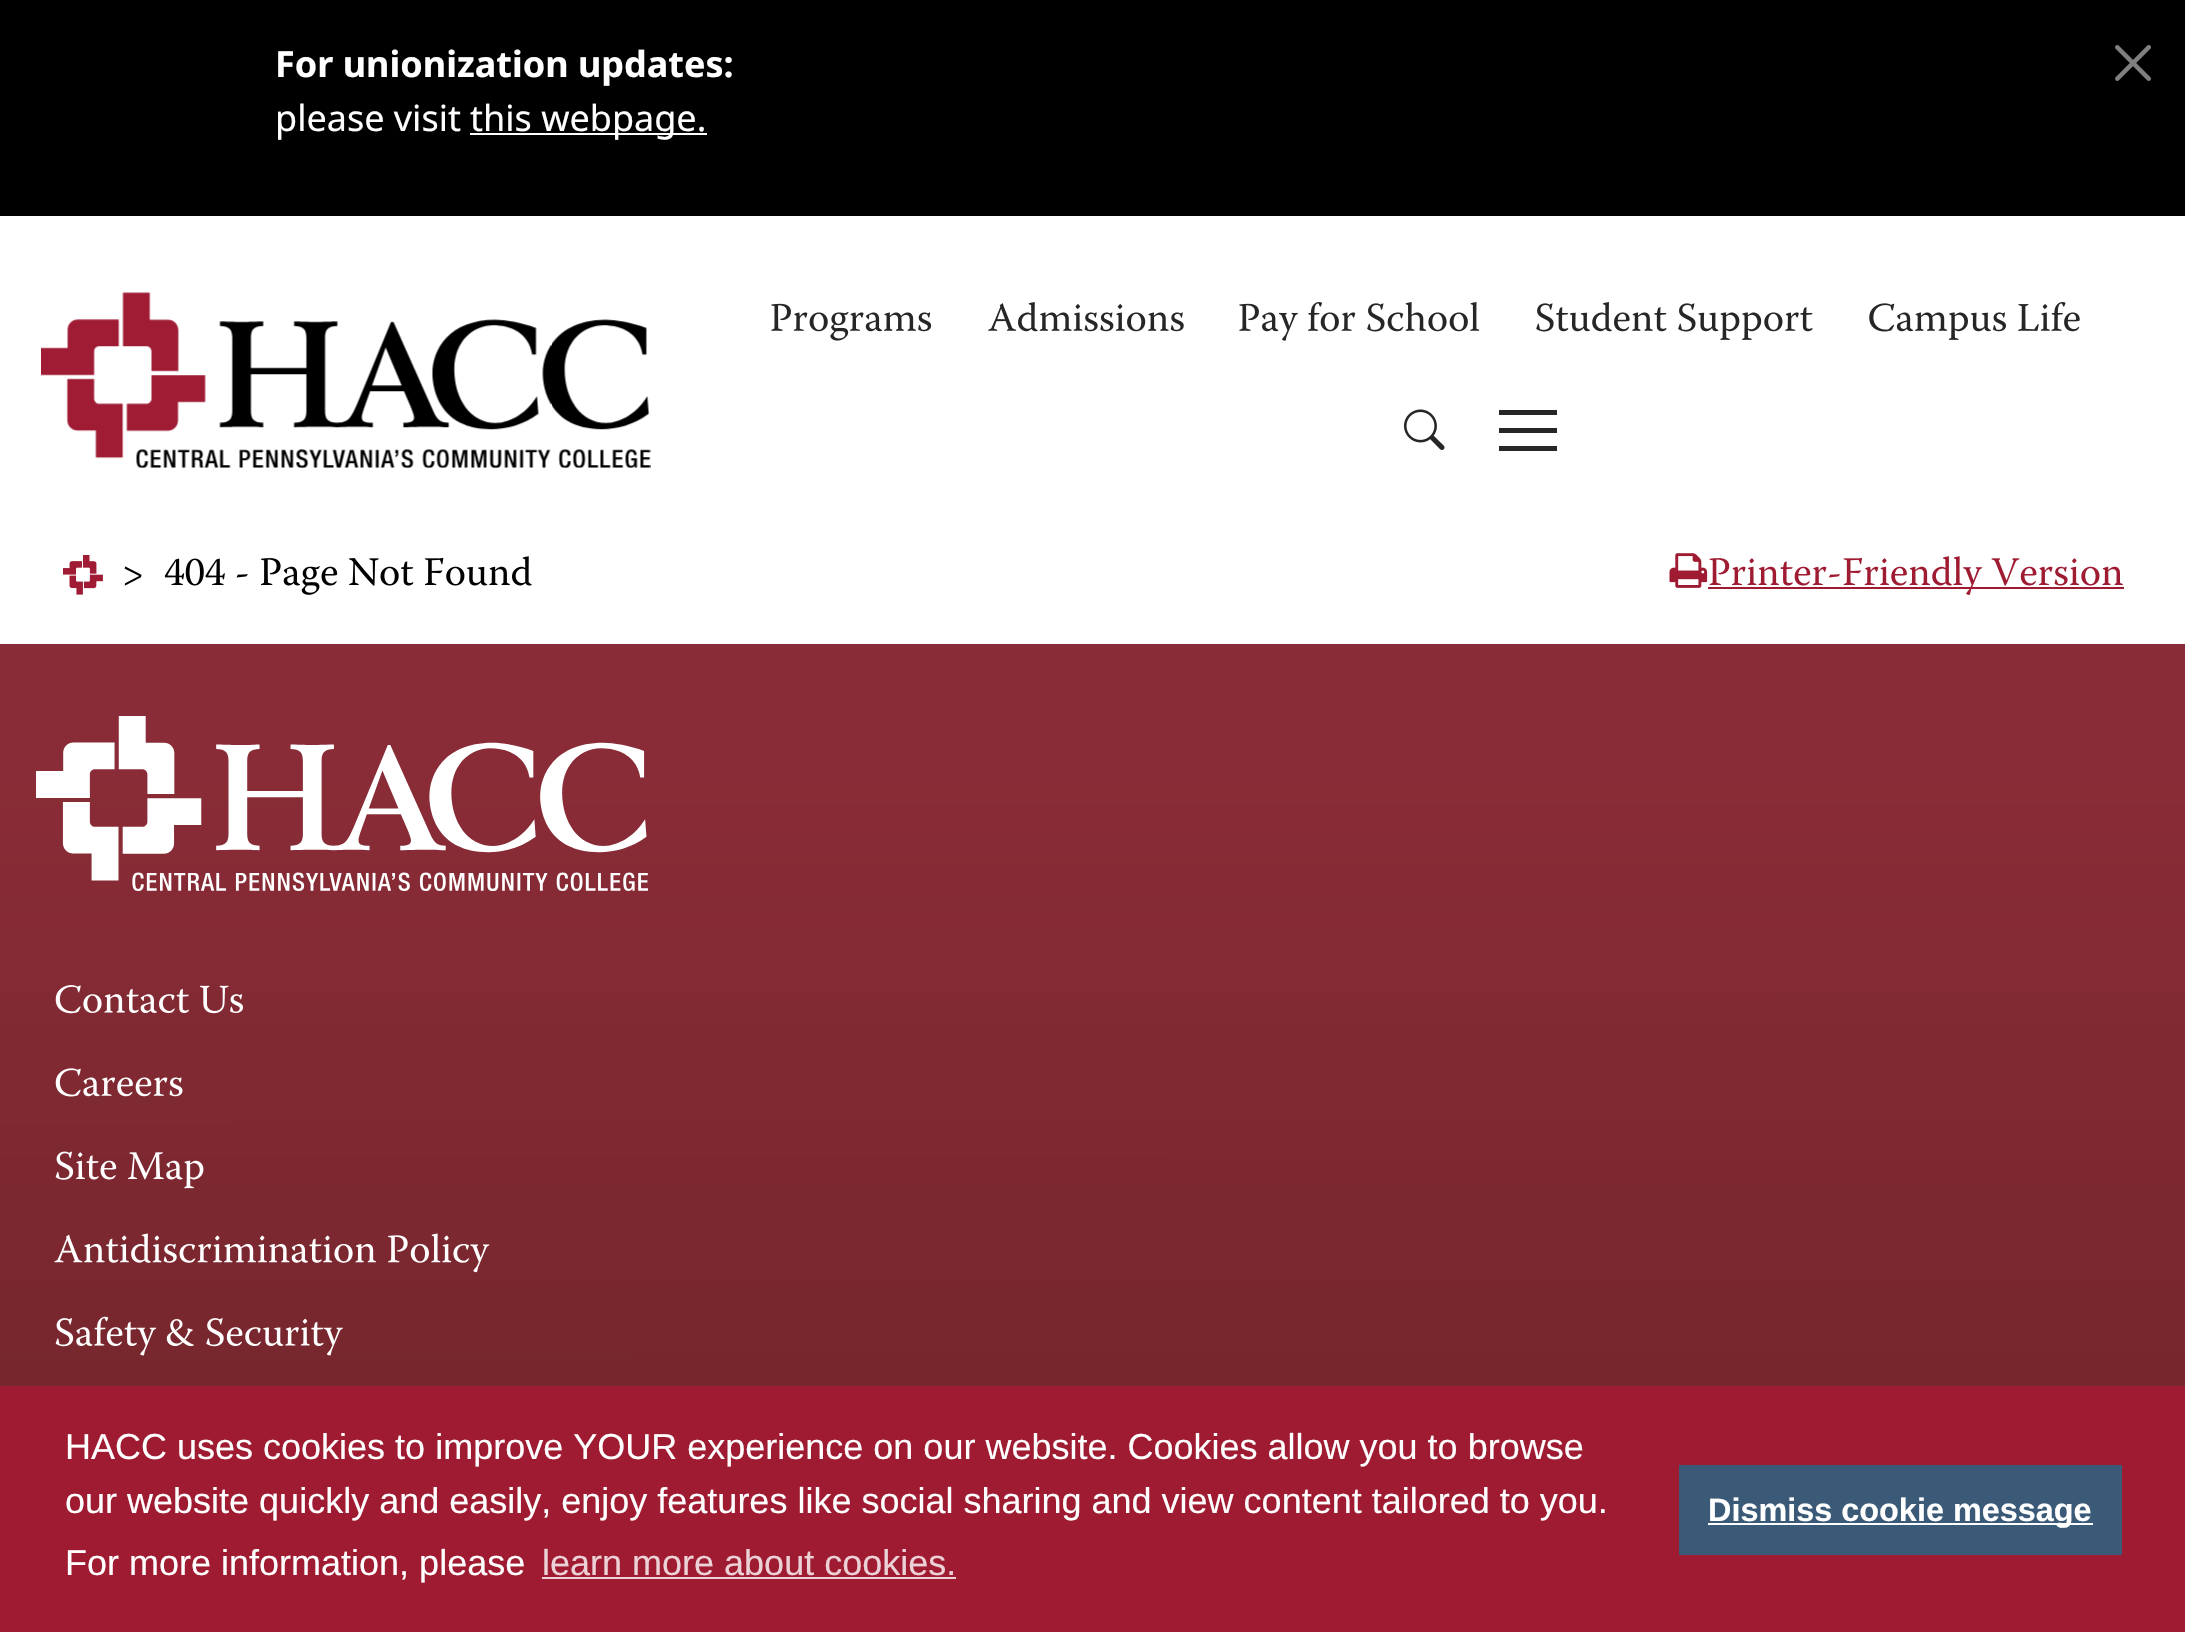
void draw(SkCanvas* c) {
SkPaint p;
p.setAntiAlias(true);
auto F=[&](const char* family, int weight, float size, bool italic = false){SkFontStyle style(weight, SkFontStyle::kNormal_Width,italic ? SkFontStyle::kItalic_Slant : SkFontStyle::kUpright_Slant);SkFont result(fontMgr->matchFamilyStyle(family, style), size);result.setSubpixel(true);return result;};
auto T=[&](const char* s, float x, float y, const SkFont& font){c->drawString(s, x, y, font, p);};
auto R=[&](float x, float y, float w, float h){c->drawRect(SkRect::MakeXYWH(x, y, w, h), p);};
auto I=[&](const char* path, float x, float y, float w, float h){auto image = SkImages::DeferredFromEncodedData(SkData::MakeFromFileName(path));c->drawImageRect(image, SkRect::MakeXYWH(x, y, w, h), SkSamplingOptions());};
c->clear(0xffffffff);
p.setColor(0xff000000);
R(0,0,2185,216);
auto f1 = F("Noto Sans",700,36);
p.setColor(0xffffffff);
T("For unionization updates:",275,77,f1);
auto f2 = F("Noto Sans",400,36);
T("please visit",275,131,f2);
R(470,133,237,2);
T("this webpage.",470,131,f2);
I("1.png",2115,45,36,36);
I("2.png",41,292,610,176);
I("3.png",771,303,161,38);
I("4.png",988,302,196,30);
I("5.png",1239,302,241,39);
I("6.png",1536,302,277,38);
I("7.png",1869,302,211,38);
I("8.png",1403,409,42,41);
p.setColor(0xff262626);
R(1499,410,58,5);
R(1499,428,58,5);
R(1499,446,58,5);
I("9.png",63,555,40,40);
I("10.png",124,566,18,20);
I("11.png",164,556,368,39);
I("12.png",1669,553,39,35);
p.setColor(0xff9e1b32);
R(1708,587,416,2);
I("13.png",1709,556,414,39);
{
const SkColor colors[] = {0xff8a2c37,0xff571d1f};
const float stops[] = {.06,1};
const SkPoint ends[] = {{1093,643}, {1094,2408}};
p.setShader(SkGradientShader::MakeLinear(ends, colors, stops, 2, SkTileMode::kClamp));
p.setAlpha(255);
}
R(0,644,2185,742);
I("14.png",36,716,612,175);
I("15.png",55,985,189,29);
I("16.png",55,1068,128,29);
I("17.png",55,1151,149,38);
I("18.png",54,1233,436,40);
I("19.png",55,1316,288,40);
p.setShader(nullptr);
p.setColor(0xff9e1b31);
R(0,1386,2185,246);
auto f3 = F("Liberation Sans",400,36);
p.setColor(0xffffffff);
T("HACC uses cookies to improve YOUR experience on our website. Cookies allow you to browse",65,1459,f3);
T("our website quickly and easily, enjoy features like social sharing and view content tailored to you.",65,1513,f3);
T("For more information, please",65,1575,f3);
p.setColor(0xffecd1d6);
T("learn more about cookies.",542,1575,f3);
R(542,1577,414,2);
p.setColor(0xff3a5a78);
R(1679,1465,443,90);
p.setColor(0xffffffff);
R(1708,1523,385,2);
auto f4 = F("Liberation Sans",700,32.4);
T("Dismiss cookie message",1708,1521,f4);
}
